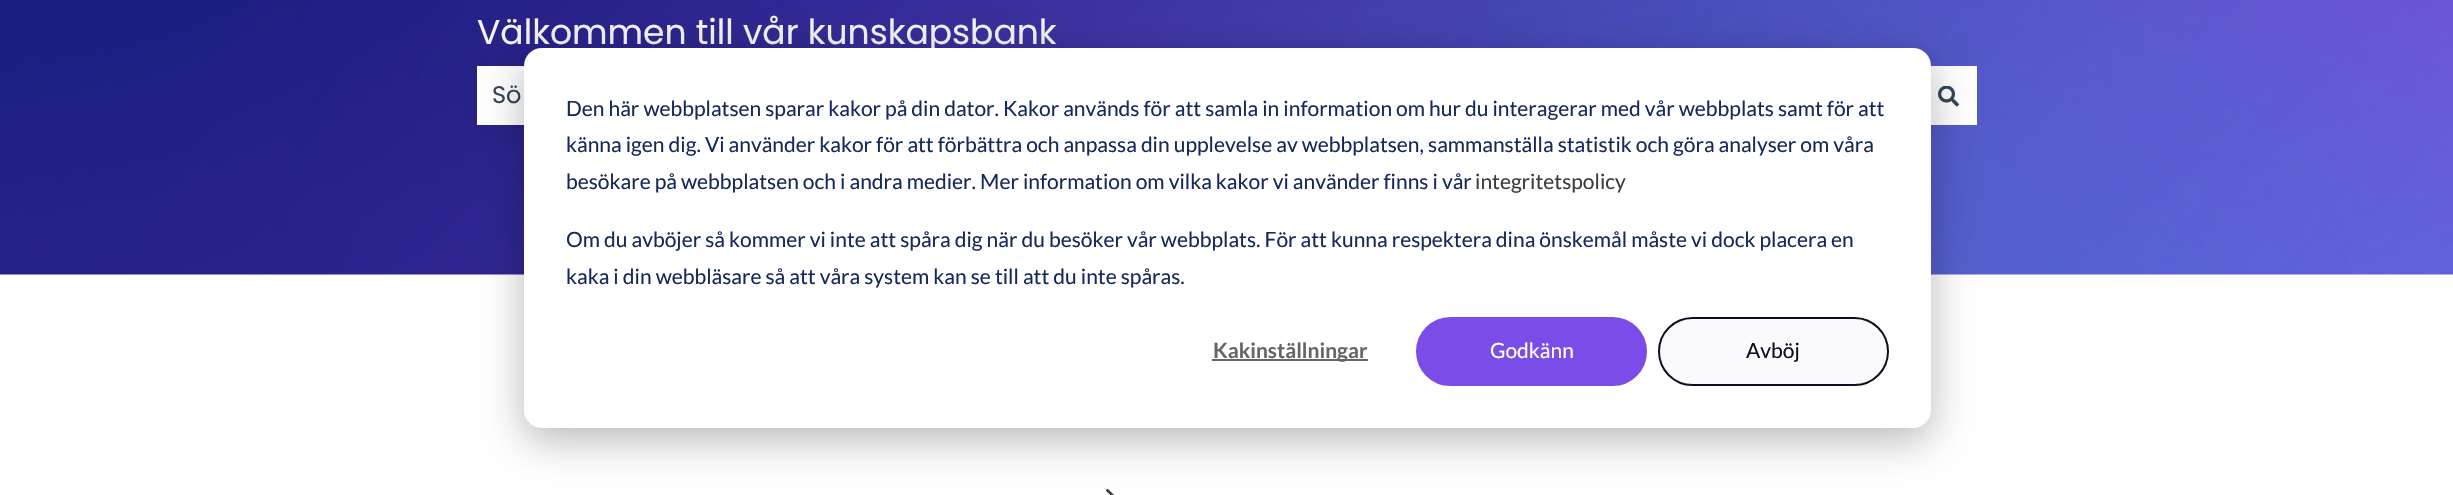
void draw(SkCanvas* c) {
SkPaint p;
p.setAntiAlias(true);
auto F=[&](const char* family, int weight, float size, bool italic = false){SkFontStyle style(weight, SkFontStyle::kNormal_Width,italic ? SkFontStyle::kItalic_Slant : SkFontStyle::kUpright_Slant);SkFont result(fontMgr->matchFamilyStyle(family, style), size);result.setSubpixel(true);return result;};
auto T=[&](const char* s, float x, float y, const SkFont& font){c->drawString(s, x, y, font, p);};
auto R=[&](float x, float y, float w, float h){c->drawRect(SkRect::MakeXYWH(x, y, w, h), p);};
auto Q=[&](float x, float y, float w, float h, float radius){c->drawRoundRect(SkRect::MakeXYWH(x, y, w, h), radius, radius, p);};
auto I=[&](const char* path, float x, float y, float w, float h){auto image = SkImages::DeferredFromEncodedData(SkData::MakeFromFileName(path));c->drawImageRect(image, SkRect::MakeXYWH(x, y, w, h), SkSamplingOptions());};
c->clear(0xffffffff);
I("1.png",0,0,2453,275);
auto f1 = F("Poppins",400,34.5);
p.setColor(0xfff4f4f4);
T("Välkommen till vår kunskapsbank",477,44,f1);
p.setColor(0x14000000);
p.setMaskFilter(SkMaskFilter::MakeBlur(kNormal_SkBlurStyle, 18));
c->drawRect(SkRect::MakeXYWH(477,68,1443,58),p);
p.setMaskFilter(nullptr);
p.setColor(0xffffffff);
R(477,66,47,59);
auto f2 = F("Poppins",400,24);
p.setColor(0xff33475b);
T("Sö",492,103,f2);
p.setColor(0xffffffff);
R(1931,66,46,59);
I("2.png",1938,86,21,21);
I("3.png",1106,488,8,7);
p.setColor(0x47000000);
p.setMaskFilter(SkMaskFilter::MakeBlur(kNormal_SkBlurStyle, 21));
c->drawRoundRect(SkRect::MakeXYWH(524,60,1407,380),18,18,p);
p.setMaskFilter(nullptr);
p.setColor(0xffffffff);
Q(524,48,1407,380,18);
auto f3 = F("Lato",400,21);
p.setColor(0xff15295a);
T("Den här webbplatsen sparar kakor på din dator. Kakor används för att samla in information om hur du interagerar med vår webbplats samt för att",566,116,f3);
T("känna igen dig. Vi använder kakor för att förbättra och anpassa din upplevelse av webbplatsen, sammanställa statistik och göra analyser om våra",566,152,f3);
T("besökare på webbplatsen och i andra medier. Mer information om vilka kakor vi använder finns i vår",566,189,f3);
p.setColor(0xff3d3c3c);
T("integritetspolicy",1475,189,f3);
p.setColor(0xff15295a);
T("Om du avböjer så kommer vi inte att spåra dig när du besöker vår webbplats. För att kunna respektera dina önskemål måste vi dock placera en",566,247,f3);
T("kaka i din webbläsare så att våra system kan se till att du inte spåras.",566,284,f3);
p.setColor(0xff666666);
R(1212,359,156,2);
auto f4 = F("Lato",700,21);
T("Kakinställningar",1213,358,f4);
p.setColor(0xff7b4ce8);
c->drawRoundRect(SkRect::MakeXYWH(1417,318,229,67),33.5,33.5,p);
p.setStroke(true);
p.setStrokeWidth(2);
c->drawRoundRect(SkRect::MakeXYWH(1417,318,229,67),33.5,33.5,p);
p.setStroke(false);
p.setColor(0xffffffff);
T("Godkänn",1490,358,f3);
p.setColor(0xfffafafc);
c->drawRoundRect(SkRect::MakeXYWH(1659,318,229,67),33.5,33.5,p);
p.setStroke(true);
p.setColor(0xff0e0e1e);
c->drawRoundRect(SkRect::MakeXYWH(1659,318,229,67),33.5,33.5,p);
p.setStroke(false);
T("Avböj",1746,358,f3);
}
